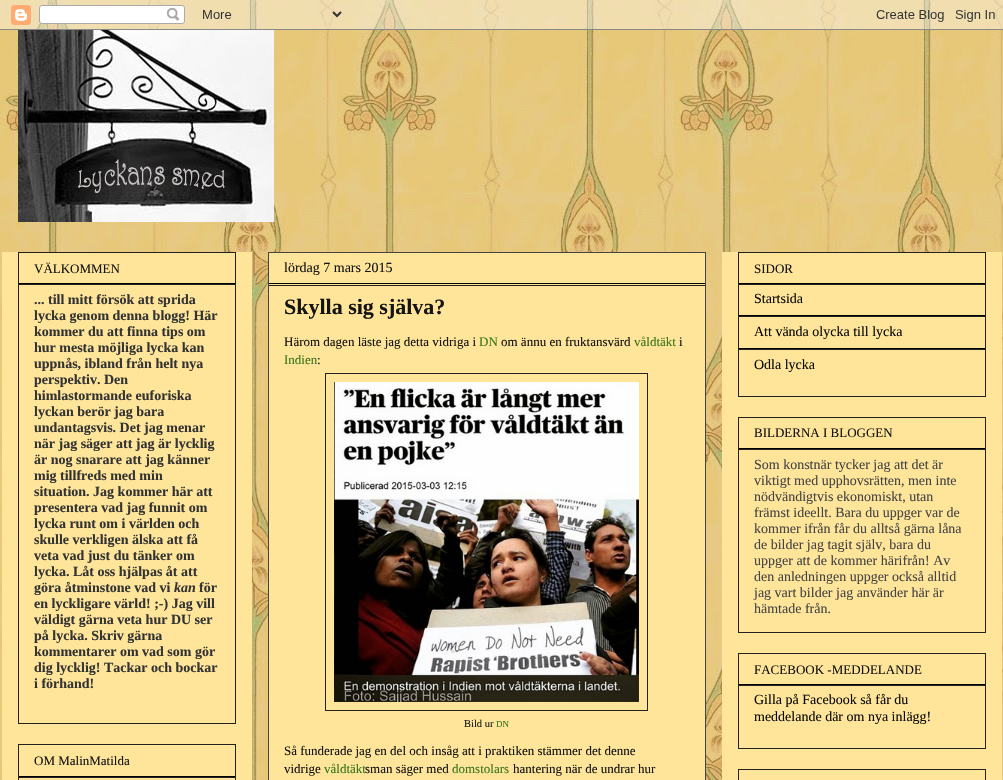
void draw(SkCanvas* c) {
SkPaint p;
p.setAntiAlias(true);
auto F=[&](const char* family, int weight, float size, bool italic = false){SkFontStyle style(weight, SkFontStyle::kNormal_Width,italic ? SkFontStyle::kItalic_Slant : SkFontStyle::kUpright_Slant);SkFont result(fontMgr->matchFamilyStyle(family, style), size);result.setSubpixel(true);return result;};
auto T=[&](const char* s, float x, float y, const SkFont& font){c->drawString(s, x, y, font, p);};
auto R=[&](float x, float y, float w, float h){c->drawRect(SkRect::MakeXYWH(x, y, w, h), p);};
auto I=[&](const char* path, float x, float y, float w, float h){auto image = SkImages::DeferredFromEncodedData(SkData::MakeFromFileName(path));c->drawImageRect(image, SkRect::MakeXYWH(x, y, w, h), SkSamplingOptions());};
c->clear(0xffffffff);
I("1.png",0,0,1003,780);
I("2.png",0,0,1003,30);
I("3.png",18,30,256,192);
p.setColor(0xffffe599);
R(2,252,250,528);
p.setStroke(true);
p.setStrokeWidth(1);
p.setColor(0xff222222);
c->drawRect(SkRect::MakeXYWH(18.5,252.5,217,471),p);
p.setStroke(false);
p.setColor(0xff000000);
R(19,283,216,1);
auto f1 = F("Liberation Serif",400,13);
p.setColor(0xff141414);
T("VÄLKOMMEN",34,273,f1);
p.setColor(0xff222222);
R(19,284,216,1);
auto f2 = F("Liberation Serif",700,14);
p.setColor(0xff333333);
T("... till mitt försök att sprida",34,304,f2);
T("lycka genom denna blogg! Här",34,320,f2);
T("kommer du att finna tips om",34,336,f2);
T("hur mesta möjliga lycka kan",34,352,f2);
T("uppnås, ibland från helt nya",34,368,f2);
T("perspektiv. Den",34,384,f2);
T("himlastormande euforiska",34,400,f2);
T("lyckan berör jag bara",34,416,f2);
T("undantagsvis. Det jag menar",34,432,f2);
T("när jag säger att jag är lycklig",34,448,f2);
T("är nog snarare att jag känner",34,464,f2);
T("mig tillfreds med min",34,480,f2);
T("situation. Jag kommer här att",34,496,f2);
T("presentera vad jag funnit om",34,512,f2);
T("lycka runt om i världen och",34,528,f2);
T("skulle verkligen älska att få",34,544,f2);
T("veta vad just du tänker om",34,560,f2);
T("lycka. Låt oss hjälpas åt att",34,576,f2);
T("göra åtminstone vad vi",34,592,f2);
auto f3 = F("Liberation Serif",700,14,true);
T("kan",174,592,f3);
T("för",199,592,f2);
T("en lyckligare värld! ;-) Jag vill",34,608,f2);
T("väldigt gärna veta hur DU ser",34,624,f2);
T("på lycka. Skriv gärna",34,640,f2);
T("kommentarer om vad som gör",34,656,f2);
T("dig lycklig! Tackar och bockar",34,672,f2);
T("i förhand!",34,688,f2);
p.setStroke(true);
p.setColor(0xff222222);
c->drawRect(SkRect::MakeXYWH(18.5,744.5,217,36),p);
p.setStroke(false);
p.setColor(0xff000000);
R(19,776,216,1);
p.setColor(0xff141414);
T("OM MalinMatilda",34,765,f1);
p.setColor(0xff222222);
R(19,777,216,1);
p.setColor(0xffffe599);
c->drawRect(SkRect::MakeXYWH(268.5,252.5,437,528),p);
p.setStroke(true);
p.setColor(0xff444444);
c->drawRect(SkRect::MakeXYWH(268.5,252.5,437,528),p);
p.setStroke(false);
p.setColor(0xff000000);
R(269,283,436,1);
auto f4 = F("Liberation Serif",400,14);
p.setColor(0xff141414);
T("lördag 7 mars 2015",284,272,f4);
p.setColor(0xff222222);
R(269,285,436,1);
auto f5 = F("Liberation Serif",700,22);
p.setColor(0xff141414);
T("Skylla sig själva?",284,314,f5);
T("Härom dagen läste jag detta vidriga i",284,346,f1);
p.setColor(0xff38761d);
T("DN",479,346,f1);
p.setColor(0xff141414);
T("om ännu en fruktansvärd",501,346,f1);
p.setColor(0xff38761d);
T("våldtäkt",634,346,f1);
p.setColor(0xff141414);
T("i",679,346,f1);
p.setColor(0xff38761d);
T("Indien",284,364,f1);
p.setColor(0xff141414);
T(":",317,364,f1);
p.setStroke(true);
p.setColor(0xff222222);
c->drawRect(SkRect::MakeXYWH(325.5,373.5,322,337),p);
I("4.png",334,382,305,320);
auto f6 = F("Liberation Serif",400,10.5);
p.setStroke(false);
p.setColor(0xff141414);
T("Bild ur",464,727,f6);
auto f7 = F("Liberation Serif",400,9);
p.setColor(0xff38761d);
T("DN",496,727,f7);
p.setColor(0xff141414);
T("Så funderade jag en del och insåg att i praktiken stämmer det denne",284,755,f1);
T("vidrige",284,773,f1);
p.setColor(0xff38761d);
T("våldtäkt",324,773,f1);
p.setColor(0xff141414);
T("sman säger med",365,773,f1);
p.setColor(0xff38761d);
T("domstolars",452,773,f1);
p.setColor(0xff141414);
T("hantering när de undrar hur",513,773,f1);
p.setColor(0xffffe599);
R(722,252,280,528);
p.setStroke(true);
p.setColor(0xff222222);
c->drawRect(SkRect::MakeXYWH(738.5,252.5,247,144),p);
p.setStroke(false);
p.setColor(0xff000000);
R(739,283,246,1);
p.setColor(0xff141414);
T("SIDOR",754,273,f1);
p.setColor(0xff222222);
R(739,284,246,1);
p.setColor(0xff000000);
R(739,315,246,1);
p.setColor(0xff0a0a0a);
T("Startsida",754,303,f4);
p.setColor(0xff222222);
R(739,316,246,1);
p.setColor(0xff000000);
R(739,348,246,1);
p.setColor(0xff0a0a0a);
T("Att vända olycka till lycka",754,336,f4);
p.setColor(0xff222222);
R(739,349,246,1);
p.setColor(0xff0a0a0a);
T("Odla lycka",754,369,f4);
p.setStroke(true);
p.setColor(0xff222222);
c->drawRect(SkRect::MakeXYWH(738.5,417.5,247,215),p);
p.setStroke(false);
p.setColor(0xff000000);
R(739,448,246,1);
p.setColor(0xff141414);
T("BILDERNA I BLOGGEN",754,437,f1);
p.setColor(0xff222222);
R(739,449,246,1);
p.setColor(0xff444444);
T("Som konstnär tycker jag att det är",754,469,f4);
T("viktigt med upphovsrätten, men inte",754,485,f4);
T("nödvändigtvis ekonomiskt, utan",754,501,f4);
T("främst ideellt. Bara du uppger var de",754,517,f4);
T("kommer ifrån får du alltså gärna låna",754,533,f4);
T("de bilder jag tagit själv, bara du",754,549,f4);
T("uppger att de kommer härifrån! Av",754,565,f4);
T("den anledningen uppger också alltid",754,581,f4);
T("jag vart bilder jag använder här är",754,597,f4);
T("hämtade från.",754,613,f4);
p.setStroke(true);
p.setColor(0xff222222);
c->drawRect(SkRect::MakeXYWH(738.5,653.5,247,95),p);
p.setStroke(false);
p.setColor(0xff000000);
R(739,684,246,1);
p.setColor(0xff141414);
T("FACEBOOK -MEDDELANDE",754,674,f1);
p.setColor(0xff222222);
R(739,685,246,1);
p.setColor(0xff0a0a0a);
T("Gilla på Facebook så får du",754,704,f4);
T("meddelande där om nya inlägg!",754,721,f4);
p.setStroke(true);
p.setColor(0xff222222);
c->drawRect(SkRect::MakeXYWH(738.5,769.5,247,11),p);
}
